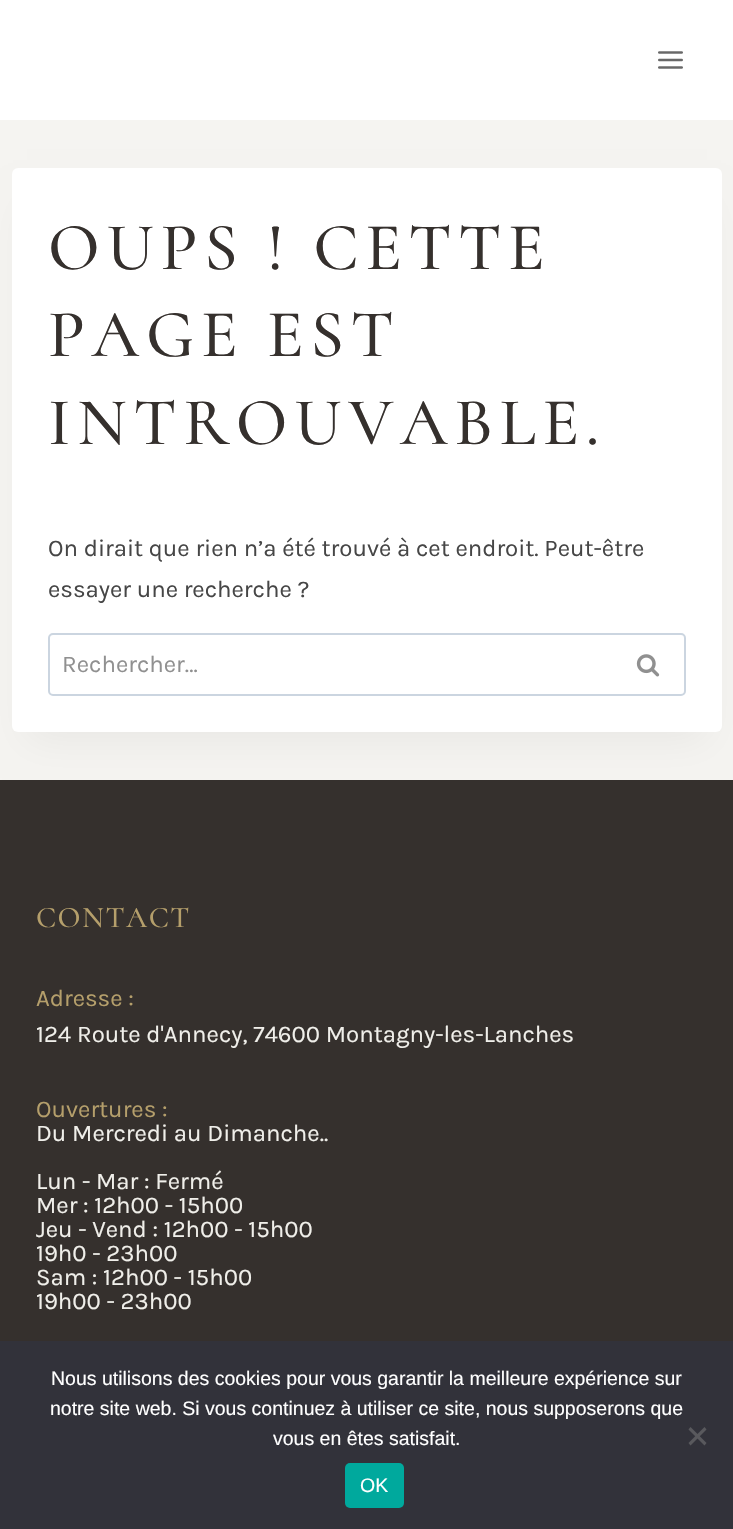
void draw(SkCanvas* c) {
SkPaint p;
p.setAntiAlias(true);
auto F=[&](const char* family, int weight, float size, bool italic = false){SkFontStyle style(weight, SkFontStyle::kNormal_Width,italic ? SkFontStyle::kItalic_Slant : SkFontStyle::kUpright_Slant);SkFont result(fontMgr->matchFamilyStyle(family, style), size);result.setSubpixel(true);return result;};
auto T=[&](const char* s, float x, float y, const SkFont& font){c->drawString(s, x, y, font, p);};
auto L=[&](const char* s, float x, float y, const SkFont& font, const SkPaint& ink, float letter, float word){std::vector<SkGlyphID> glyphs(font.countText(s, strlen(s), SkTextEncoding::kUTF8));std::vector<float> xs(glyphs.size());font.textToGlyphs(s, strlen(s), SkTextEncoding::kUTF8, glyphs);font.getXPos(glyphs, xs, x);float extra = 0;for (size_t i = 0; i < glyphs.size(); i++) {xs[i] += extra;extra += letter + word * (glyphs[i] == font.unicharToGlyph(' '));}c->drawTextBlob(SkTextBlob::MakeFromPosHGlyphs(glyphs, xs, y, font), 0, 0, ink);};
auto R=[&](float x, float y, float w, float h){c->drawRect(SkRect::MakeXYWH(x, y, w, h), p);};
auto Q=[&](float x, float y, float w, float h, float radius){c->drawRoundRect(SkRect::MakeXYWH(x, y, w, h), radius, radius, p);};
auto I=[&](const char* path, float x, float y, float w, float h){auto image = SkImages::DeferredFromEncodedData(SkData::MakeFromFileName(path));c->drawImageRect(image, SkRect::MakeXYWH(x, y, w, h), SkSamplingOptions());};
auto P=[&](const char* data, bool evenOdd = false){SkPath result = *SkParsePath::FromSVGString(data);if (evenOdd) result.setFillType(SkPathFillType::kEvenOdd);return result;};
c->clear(0xfff5f4f1);
p.setColor(0xffffffff);
R(0,0,733,120);
I("1.png",658,51,25,18);
p.setColor(0xff35302d);
R(0,780,733,561);
p.setColor(0x0d000000);
p.setMaskFilter(SkMaskFilter::MakeBlur(kNormal_SkBlurStyle, 19));
c->drawRect(SkRect::MakeXYWH(27,206,680,534),p);
p.setMaskFilter(nullptr);
p.setColor(0xffffffff);
Q(12,168,710,564,6);
auto f1 = F("Cormorant",500,67.5);
p.setColor(0xff35302d);
L("OUPS ! CETTE",48,269,f1,p,6.75,0);
L("PAGE EST",48,356,f1,p,6.75,0);
L("INTROUVABLE.",48,444,f1,p,6.75,0);
auto f2 = F("Karla",400,24);
p.setColor(0xff464646);
T("On dirait que rien n’a été trouvé à cet endroit. Peut-être",48,556,f2);
T("essayer une recherche ?",48,597,f2);
p.setStroke(true);
p.setStrokeWidth(2);
p.setColor(0xffcbd5e0);
c->drawRoundRect(SkRect::MakeXYWH(49,634,636,61),4,4,p);
p.setStroke(false);
p.setColor(0xff909090);
T("Rechercher…",62,672,f2);
I("2.png",636,654,24,23);
auto f3 = F("Cormorant",500,30);
p.setColor(0xffb59f6b);
L("CONTACT",36,927,f3,p,1.5,0);
T("Adresse :",36,1006,f2);
p.setColor(0xfff0efea);
T("124 Route d'Annecy, 74600 Montagny-les-Lanches",36,1042,f2);
p.setColor(0xffb59f6b);
T("Ouvertures :",36,1117,f2);
p.setColor(0xfff0efea);
T("Du Mercredi au Dimanche..",36,1141,f2);
T("Lun - Mar : Fermé",36,1189,f2);
T("Mer : 12h00 - 15h00",36,1213,f2);
T("Jeu - Vend : 12h00 - 15h00",36,1237,f2);
T("19h0 - 23h00",36,1261,f2);
T("Sam : 12h00 - 15h00",36,1285,f2);
T("19h00 - 23h00",36,1309,f2);
p.setColor(0xff32323a);
R(0,1341,733,188);
auto f4 = F("Liberation Sans",400,19.5);
p.setColor(0xffffffff);
T("Nous utilisons des cookies pour vous garantir la meilleure expérience sur",51,1385,f4);
T("notre site web. Si vous continuez à utiliser ce site, nous supposerons que",50,1415,f4);
T("vous en êtes satisfait.",273,1445,f4);
p.setColor(0xff59595d);
c->drawPath(P("M704.5 1427l2 2.5l-16 16l-2-2.5z"),p);
c->drawPath(P("M688.5 1429.5l2-2.5l16 16l-2 2.5z"),p);
p.setColor(0xff00a99d);
Q(345,1463,59,45,5);
p.setColor(0xffffffff);
T("OK",360,1492,f4);
}
